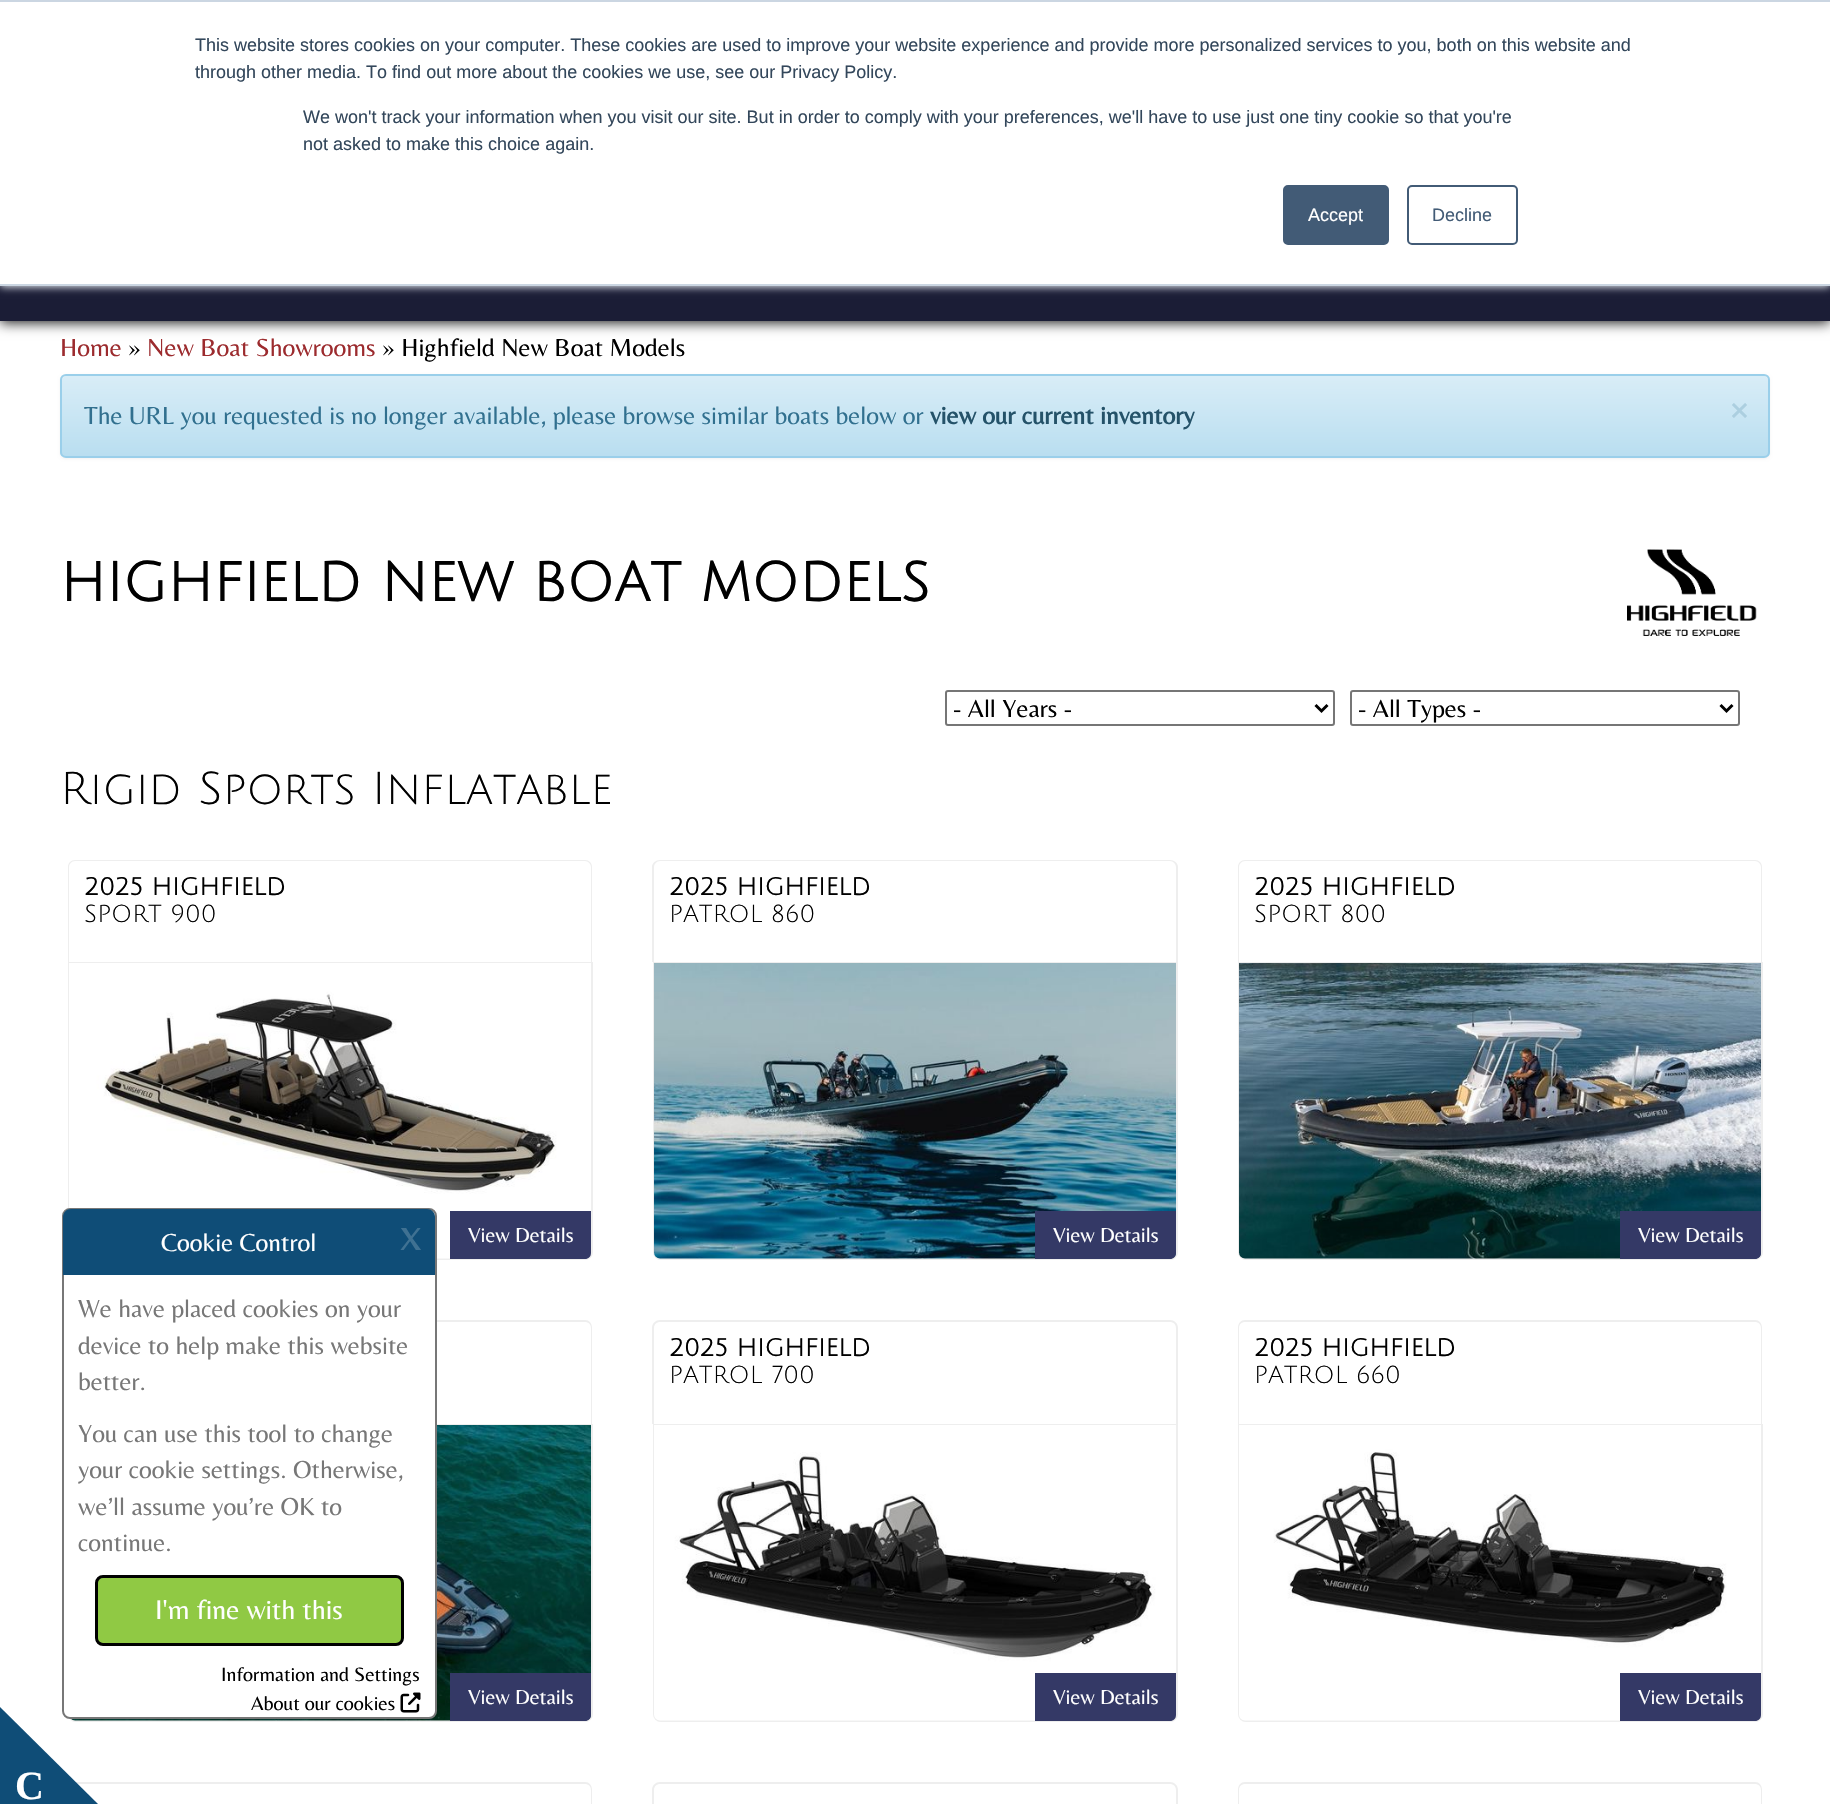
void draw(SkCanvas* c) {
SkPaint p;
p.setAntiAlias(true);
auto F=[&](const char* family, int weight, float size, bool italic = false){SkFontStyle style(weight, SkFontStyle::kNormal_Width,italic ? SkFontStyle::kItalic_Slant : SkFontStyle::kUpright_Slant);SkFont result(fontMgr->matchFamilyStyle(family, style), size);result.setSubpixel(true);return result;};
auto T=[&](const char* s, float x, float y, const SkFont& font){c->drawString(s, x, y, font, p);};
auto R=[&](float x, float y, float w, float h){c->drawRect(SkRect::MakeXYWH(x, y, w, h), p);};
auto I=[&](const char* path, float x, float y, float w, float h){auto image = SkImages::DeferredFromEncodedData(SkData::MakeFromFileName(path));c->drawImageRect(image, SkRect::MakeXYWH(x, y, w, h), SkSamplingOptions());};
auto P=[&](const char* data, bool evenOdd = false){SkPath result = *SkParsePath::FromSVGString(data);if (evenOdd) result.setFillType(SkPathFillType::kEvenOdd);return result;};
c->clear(0xffffffff);
p.setColor(0xff212020);
p.setMaskFilter(SkMaskFilter::MakeBlur(kNormal_SkBlurStyle, 6));
c->drawRect(SkRect::MakeXYWH(0,2,1830,321),p);
p.setMaskFilter(nullptr);
p.setColor(0xff1b1d36);
R(0,286,1830,35);
p.setColor(0xffeaf0f6);
p.setMaskFilter(SkMaskFilter::MakeBlur(kNormal_SkBlurStyle, 4));
c->drawRect(SkRect::MakeXYWH(0,2,1830,285),p);
p.setMaskFilter(nullptr);
p.setColor(0xffffffff);
R(0,2,1830,282);
p.setColor(0xffcbd6e2);
R(0,0,1830,2);
R(0,284,1830,2);
auto f1 = F("Liberation Sans",400,18);
p.setColor(0xff33475b);
T("This website stores cookies on your computer. These cookies are used to improve your website experience and provide more personalized services to you, both on this website and",195,51,f1);
T("through other media. To find out more about the cookies we use, see our Privacy Policy.",195,78,f1);
T("We won't track your information when you visit our site. But in order to comply with your preferences, we'll have to use just one tiny cookie so that you're",303,123,f1);
T("not asked to make this choice again.",303,150,f1);
p.setColor(0xff425b76);
c->drawRoundRect(SkRect::MakeXYWH(1284,186,104,58),4,4,p);
p.setStroke(true);
p.setStrokeWidth(2);
c->drawRoundRect(SkRect::MakeXYWH(1284,186,104,58),4,4,p);
p.setStroke(false);
p.setColor(0xffffffff);
T("Accept",1308,221,f1);
p.setStroke(true);
p.setColor(0xff425b76);
c->drawRoundRect(SkRect::MakeXYWH(1408,186,109,58),4,4,p);
p.setStroke(false);
T("Decline",1432,221,f1);
auto f2 = F("Belleza",400,25.5);
p.setColor(0xff9c2b2e);
T("Home",60,356,f2);
p.setColor(0xff000000);
T("»",128,356,f2);
p.setColor(0xff9c2b2e);
T("New Boat Showrooms",147,356,f2);
p.setColor(0xff000000);
T("» Highfield New Boat Models",382,356,f2);
p.setColor(0x0d000000);
p.setMaskFilter(SkMaskFilter::MakeBlur(kNormal_SkBlurStyle, 1.5));
c->drawRoundRect(SkRect::MakeXYWH(60,375,1710,84),6,6,p);
p.setMaskFilter(nullptr);
c->save();
c->clipPath(P("M66 374h1698c3.5 0 6 2.5 6 6v72c0 3.5-2.5 6-6 6h-1698c-3.5 0-6-2.5-6-6v-72c0-3.5 2.5-6 6-6z"),true);
{
const SkColor colors[] = {0xffd9edf7,0xffb9def0};
const float stops[] = {0,1};
const SkPoint ends[] = {{915,375}, {915,456}};
p.setShader(SkGradientShader::MakeLinear(ends, colors, stops, 2, SkTileMode::kClamp));
p.setAlpha(255);
}
R(60,375,1710,81);
c->restore();
p.setShader(nullptr);
p.setColor(0x40ffffff);
c->drawPath(P("M66 376h1698c2 0 4 3 4 5v73c1-1 1-2 1-3v-71c0-3-2-5-5-5h-1697c-3 0-5 2-5 5v1c0-2 2-5 4-5z"),p);
p.setStroke(true);
p.setColor(0xff9acfea);
c->drawRoundRect(SkRect::MakeXYWH(61,375,1708,82),5,5,p);
p.setStroke(false);
p.setColor(0xff31708f);
T("The URL you requested is no longer available, please browse similar boats below or",84,424,f2);
auto f3 = F("Belleza",700,25.5);
p.setColor(0xff245269);
T("view our current inventory",930,424,f3);
auto f4 = F("Belleza",700,32);
p.setColor(0xffaccfe0);
T("×",1730,419,f4);
auto f5 = F("Julius Sans One",700,54);
p.setColor(0xff000000);
T("HIGHFIELD NEW BOAT MODELS",60,601,f5);
I("1.png",1627,549,130,87);
p.setStroke(true);
p.setColor(0xff767676);
c->drawRoundRect(SkRect::MakeXYWH(946,691,388,34),2,2,p);
p.setStrokeWidth(3);
p.setColor(0xff000000);
c->drawPath(P("M1315.5 705l6 6l6-6"),p);
p.setStroke(false);
T("- All Years -",953,717,f2);
p.setStroke(true);
p.setStrokeWidth(2);
p.setColor(0xff767676);
c->drawRoundRect(SkRect::MakeXYWH(1351,691,388,34),2,2,p);
p.setStrokeWidth(3);
p.setColor(0xff000000);
c->drawPath(P("M1720.5 705l6 6l6-6"),p);
p.setStroke(false);
T("- All Types -",1358,717,f2);
auto f6 = F("Julius Sans One",400,45);
T("Rigid Sports Inflatable",60,804,f6);
p.setColor(0xffeeeeee);
c->drawPath(P("M75 860h510c4 0 7 3 7 7v95h-524v-95c0-4 3-7 7-7zm0 1h510c3 0 6 3 6 6v95h-522v-95c0-3 3-6 6-6z",true),p);
auto f7 = F("Julius Sans One",700,24);
p.setColor(0xff000000);
T("2025 HIGHFIELD",84,895,f7);
auto f8 = F("Julius Sans One",400,24);
T("SPORT 900",84,922,f8);
p.setStroke(true);
p.setStrokeWidth(2);
p.setColor(0xffeeeeee);
c->drawPath(P("M69 963h523v289c0 4-3 7-7 7h-509c-4 0-7-3-7-7z"),p);
I("2.png",69,963,522,296);
p.setStroke(false);
p.setColor(0xff343966);
c->drawPath(P("M450 1211h141v42c0 3.5-2.5 6-6 6h-135z"),p);
auto f9 = F("Belleza",400,21);
p.setColor(0xffffffff);
T("View Details",468,1242,f9);
p.setColor(0xffeeeeee);
c->drawPath(P("M660 860h510c4 0 8 3 8 7v95h-526v-95c0-4 4-7 8-7zm0 1h510c3 0 6 3 6 6v95h-522v-95c0-3 3-6 6-6z",true),p);
p.setColor(0xff000000);
T("2025 HIGHFIELD",669,895,f7);
T("PATROL 860",669,922,f8);
p.setStroke(true);
p.setColor(0xffeeeeee);
c->drawPath(P("M654 963h523v289c0 4-3 7-7 7h-509c-4 0-7-3-7-7z"),p);
I("3.png",654,963,522,296);
p.setStroke(false);
p.setColor(0xff343966);
c->drawPath(P("M1035 1211h141v42c0 3.5-2.5 6-6 6h-135z"),p);
p.setColor(0xffffffff);
T("View Details",1053,1242,f9);
p.setColor(0xffeeeeee);
c->drawPath(P("M1245 860h510c4 0 7 3 7 7v95h-524v-95c0-4 3-7 7-7zm0 1h510c3 0 6 3 6 6v95h-522v-95c0-3 3-6 6-6z",true),p);
p.setColor(0xff000000);
T("2025 HIGHFIELD",1254,895,f7);
T("SPORT 800",1254,922,f8);
p.setStroke(true);
p.setColor(0xffeeeeee);
c->drawPath(P("M1239 963h523v289c0 4-3 7-7 7h-509c-4 0-7-3-7-7z"),p);
I("4.png",1239,963,522,296);
p.setStroke(false);
p.setColor(0xff343966);
c->drawPath(P("M1620 1211h141v42c0 3.5-2.5 6-6 6h-135z"),p);
p.setColor(0xffffffff);
T("View Details",1638,1242,f9);
p.setColor(0xffeeeeee);
c->drawPath(P("M75 1320h510c4 0 7 3 7 8v96h-524v-96c0-5 3-8 7-8zm0 2h510c3 0 6 2 6 6v96h-522v-96c0-4 3-6 6-6z",true),p);
p.setStroke(true);
c->drawPath(P("M69 1425h523v289c0 4-3 7-7 7h-509c-4 0-7-3-7-7z"),p);
I("5.png",71,1425,520,296);
p.setStroke(false);
p.setColor(0xff343966);
c->drawPath(P("M450 1673h141v42c0 3.5-2.5 6-6 6h-135z"),p);
p.setColor(0xffffffff);
T("View Details",468,1704,f9);
p.setColor(0xffeeeeee);
c->drawPath(P("M660 1320h510c4 0 8 3 8 8v96h-526v-96c0-5 4-8 8-8zm0 2h510c3 0 6 2 6 6v96h-522v-96c0-4 3-6 6-6z",true),p);
p.setColor(0xff000000);
T("2025 HIGHFIELD",669,1356,f7);
T("PATROL 700",669,1383,f8);
p.setStroke(true);
p.setColor(0xffeeeeee);
c->drawPath(P("M654 1425h523v289c0 4-3 7-7 7h-509c-4 0-7-3-7-7z"),p);
I("6.png",654,1425,522,296);
p.setStroke(false);
p.setColor(0xff343966);
c->drawPath(P("M1035 1673h141v42c0 3.5-2.5 6-6 6h-135z"),p);
p.setColor(0xffffffff);
T("View Details",1053,1704,f9);
p.setColor(0xffeeeeee);
c->drawPath(P("M1245 1320h510c4 0 7 3 7 8v96h-524v-96c0-5 3-8 7-8zm0 2h510c3 0 6 2 6 6v96h-522v-96c0-4 3-6 6-6z",true),p);
p.setColor(0xff000000);
T("2025 HIGHFIELD",1254,1356,f7);
T("PATROL 660",1254,1383,f8);
p.setStroke(true);
p.setColor(0xffeeeeee);
c->drawPath(P("M1239 1425h523v289c0 4-3 7-7 7h-509c-4 0-7-3-7-7z"),p);
I("7.png",1239,1425,522,296);
p.setStroke(false);
p.setColor(0xff343966);
c->drawPath(P("M1620 1673h141v42c0 3.5-2.5 6-6 6h-135z"),p);
p.setColor(0xffffffff);
T("View Details",1638,1704,f9);
p.setColor(0xffeeeeee);
c->drawPath(P("M75 1782h510c4 0 7 3 7 8v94h-524v-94c0-5 3-8 7-8zm0 2h510c3 0 6 2 6 6v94h-522v-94c0-4 3-6 6-6z",true),p);
c->drawPath(P("M660 1782h510c4 0 8 3 8 8v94h-526v-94c0-5 4-8 8-8zm0 2h510c3 0 6 2 6 6v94h-522v-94c0-4 3-6 6-6z",true),p);
c->drawPath(P("M1245 1782h510c4 0 7 3 7 8v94h-524v-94c0-5 3-8 7-8zm0 2h510c3 0 6 2 6 6v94h-522v-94c0-4 3-6 6-6z",true),p);
p.setColor(0xff0f4d77);
c->drawPath(P("M0 1804v-97l98 97z"),p);
p.setColor(0xffffffff);
c->drawRoundRect(SkRect::MakeXYWH(63,1209,373,509),7,7,p);
p.setStroke(true);
p.setColor(0xff777777);
c->drawRoundRect(SkRect::MakeXYWH(63,1209,373,509),7,7,p);
p.setStroke(false);
p.setColor(0xff0f4d77);
c->drawPath(P("M71 1209h356c4.5 0 8 3.5 8 8v58h-372v-58c0-4.5 3.5-8 8-8z"),p);
p.setColor(0xffffffff);
T("Cookie Control",161,1251,f2);
p.setColor(0xff3f7192);
T("X",400,1250,f4);
p.setColor(0xff777777);
T("We have placed cookies on your",78,1317,f2);
T("device to help make this website",78,1354,f2);
T("better.",78,1390,f2);
T("You can use this tool to change",78,1442,f2);
T("your cookie settings. Otherwise,",78,1478,f2);
T("we’ll assume you’re OK to",78,1515,f2);
T("continue.",78,1551,f2);
p.setColor(0xff90c944);
c->drawRoundRect(SkRect::MakeXYWH(96.5,1576.5,306,68),6.5,6.5,p);
p.setStroke(true);
p.setStrokeWidth(3);
p.setColor(0xff000000);
c->drawRoundRect(SkRect::MakeXYWH(96.5,1576.5,306,68),6.5,6.5,p);
auto f10 = F("Belleza",400,28);
p.setStroke(false);
p.setColor(0xffffffff);
T("I'm fine with this",155,1619,f10);
auto f11 = F("Belleza",400,20);
p.setColor(0xff000000);
T("Information and Settings",221,1681,f11);
T("About our cookies",251,1710,f11);
I("8.png",400,1692,21,21);
auto f12 = F("Liberation Serif",700,40);
p.setColor(0xffffffff);
T("C",15,1799,f12);
}
